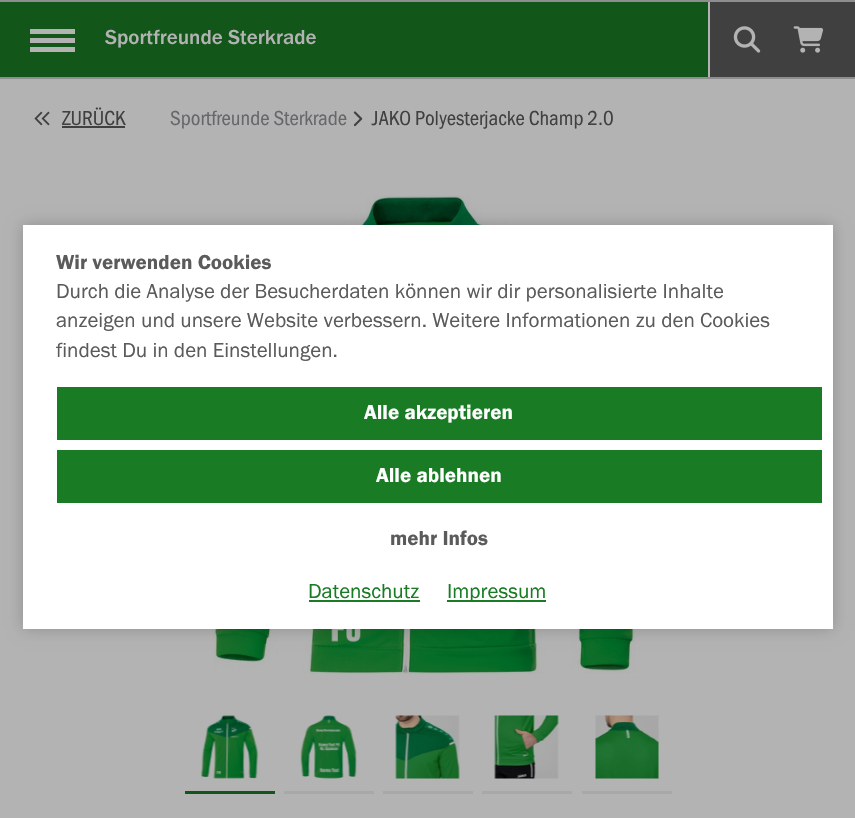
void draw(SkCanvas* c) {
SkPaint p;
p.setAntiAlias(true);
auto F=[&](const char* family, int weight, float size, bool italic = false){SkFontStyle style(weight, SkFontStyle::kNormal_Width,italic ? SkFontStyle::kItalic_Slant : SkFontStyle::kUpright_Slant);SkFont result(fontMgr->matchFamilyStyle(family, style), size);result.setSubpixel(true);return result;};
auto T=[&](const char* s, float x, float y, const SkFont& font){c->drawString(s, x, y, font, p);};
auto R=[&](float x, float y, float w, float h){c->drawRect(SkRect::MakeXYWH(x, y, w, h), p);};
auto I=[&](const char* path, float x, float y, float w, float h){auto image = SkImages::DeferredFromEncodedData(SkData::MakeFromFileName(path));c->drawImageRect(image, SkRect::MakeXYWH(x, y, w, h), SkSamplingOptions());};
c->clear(0xffb3b3b3);
p.setColor(0xff125719);
R(0,2,708,75);
p.setColor(0xff8e8e8e);
R(0,0,855,2);
R(0,77,855,2);
p.setColor(0xffb3b3b3);
R(30,29,45,5);
R(30,38,45,5);
R(30,47,45,5);
auto f1 = F("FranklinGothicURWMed",400,21);
T("Sportfreunde Sterkrade",105,44,f1);
p.setColor(0xff404040);
R(710,2,145,75);
I("1.png",733,26,28,27);
I("2.png",793,26,31,27);
I("3.png",34,111,16,15);
auto f2 = F("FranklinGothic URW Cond",400,21);
T("ZURÜCK",62,125,f2);
R(62,126,63,2);
p.setColor(0xff67676a);
T("Sportfreunde Sterkrade",170,125,f2);
I("4.png",353,111,10,16);
p.setColor(0xff404040);
T("JAKO Polyesterjacke Champ 2.0",372,125,f2);
I("5.png",213,195,428,480);
p.setColor(0xff125719);
R(185,791,90,3);
I("6.png",201,715,58,64);
p.setColor(0xffa8a8a8);
R(284,791,90,3);
I("7.png",300,715,57,64);
R(383,791,90,3);
I("8.png",395,715,65,64);
R(482,791,90,3);
I("9.png",494,715,65,64);
R(582,791,90,3);
I("10.png",595,715,64,64);
p.setColor(0x33000000);
p.setMaskFilter(SkMaskFilter::MakeBlur(kNormal_SkBlurStyle, 7.5));
c->drawRect(SkRect::MakeXYWH(23,225,810,404),p);
p.setMaskFilter(nullptr);
p.setColor(0xffffffff);
R(23,225,810,404);
auto f3 = F("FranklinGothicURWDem",400,21);
p.setColor(0xff5b5b5b);
T("Wir verwenden Cookies",56,269,f3);
auto f4 = F("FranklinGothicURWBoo",400,21);
T("Durch die Analyse der Besucherdaten können wir dir personalisierte Inhalte",56,298,f4);
T("anzeigen und unsere Website verbessern. Weitere Informationen zu den Cookies",56,327,f4);
T("findest Du in den Einstellungen.",56,357,f4);
p.setColor(0xff197c24);
R(57,387,765,53);
p.setColor(0xffffffff);
T("Alle akzeptieren",364,419,f3);
p.setColor(0xff197c24);
R(57,450,765,53);
p.setColor(0xffffffff);
T("Alle ablehnen",376,482,f3);
p.setColor(0xff5b5b5b);
T("mehr Infos",390,545,f3);
p.setColor(0xff197c24);
T("Datenschutz",308,598,f4);
R(309,600,111,2);
R(447,600,99,2);
T("Impressum",447,598,f4);
}
